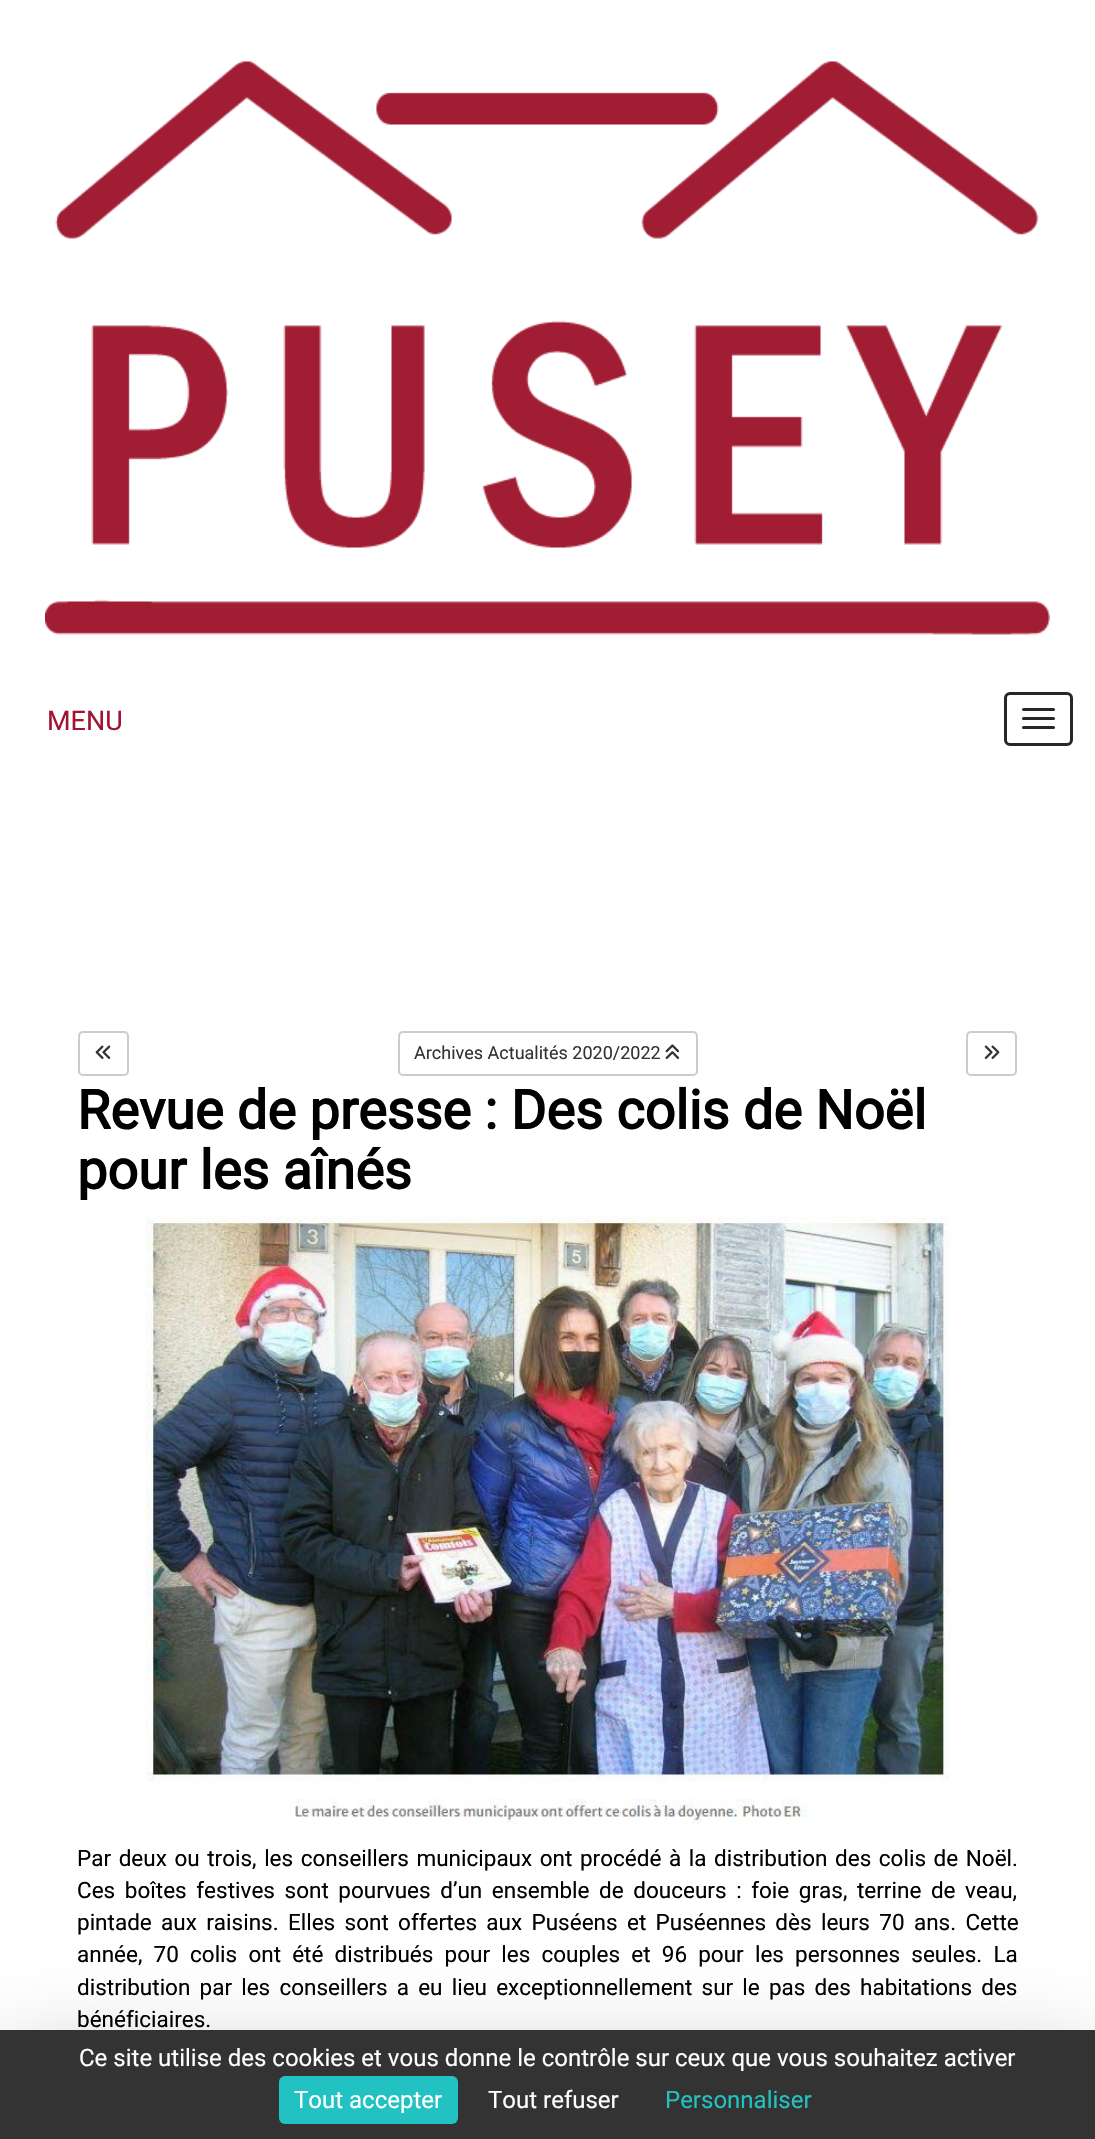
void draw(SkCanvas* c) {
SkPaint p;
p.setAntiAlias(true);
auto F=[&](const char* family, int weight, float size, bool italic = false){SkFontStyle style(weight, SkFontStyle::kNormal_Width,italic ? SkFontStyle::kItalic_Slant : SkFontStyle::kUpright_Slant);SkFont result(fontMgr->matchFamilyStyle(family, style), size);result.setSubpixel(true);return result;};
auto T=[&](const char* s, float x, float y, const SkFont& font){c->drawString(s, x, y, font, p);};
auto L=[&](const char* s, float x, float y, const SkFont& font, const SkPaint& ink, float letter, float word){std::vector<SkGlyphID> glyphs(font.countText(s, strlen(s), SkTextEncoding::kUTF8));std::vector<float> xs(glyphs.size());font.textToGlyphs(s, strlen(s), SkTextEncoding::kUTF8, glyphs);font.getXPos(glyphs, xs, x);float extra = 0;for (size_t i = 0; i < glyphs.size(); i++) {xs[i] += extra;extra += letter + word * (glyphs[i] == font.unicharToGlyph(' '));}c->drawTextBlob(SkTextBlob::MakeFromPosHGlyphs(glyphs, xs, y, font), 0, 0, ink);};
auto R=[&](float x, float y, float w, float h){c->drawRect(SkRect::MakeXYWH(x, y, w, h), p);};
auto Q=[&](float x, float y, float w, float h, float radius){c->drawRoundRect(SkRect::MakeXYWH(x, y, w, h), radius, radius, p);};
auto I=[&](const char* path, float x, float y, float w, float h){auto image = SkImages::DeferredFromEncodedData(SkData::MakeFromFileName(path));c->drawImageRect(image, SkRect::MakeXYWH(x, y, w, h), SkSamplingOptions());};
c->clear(0xffffffff);
I("1.png",45,61,1005,574);
auto f1 = F("Roboto",400,27);
p.setColor(0xffa11532);
T("MENU",47,730,f1);
p.setStroke(true);
p.setStrokeWidth(3);
p.setColor(0xff272727);
c->drawRoundRect(SkRect::MakeXYWH(1005.5,693.5,66,51),4.5,4.5,p);
p.setStroke(false);
Q(1022,708,33,3,1.5);
Q(1022,717,33,3,1.5);
Q(1022,726,33,3,1.5);
p.setStroke(true);
p.setStrokeWidth(2);
p.setColor(0xffcccccc);
c->drawRoundRect(SkRect::MakeXYWH(79,1032,49,43),4,4,p);
I("2.png",95,1045,16,14);
c->drawRoundRect(SkRect::MakeXYWH(399,1032,298,43),4,4,p);
auto f2 = F("Roboto",400,18);
p.setStroke(false);
p.setColor(0xff333333);
T("Archives Actualités 2020/2022",414,1059,f2);
I("3.png",665,1044,15,15);
p.setStroke(true);
p.setColor(0xffcccccc);
c->drawRoundRect(SkRect::MakeXYWH(967,1032,49,43),4,4,p);
I("4.png",984,1045,16,14);
auto f3 = F("Roboto",700,54);
p.setStroke(false);
p.setColor(0xff000000);
T("Revue de presse : Des colis de Noël",77,1129,f3);
T("pour les aînés",77,1189,f3);
I("5.png",145,1216,806,609);
auto f4 = F("Roboto",400,22.5);
L("Par deux ou trois, les conseillers municipaux ont procédé à la distribution des colis de Noël.",77,1866,f4,p,0,2);
L("Ces boîtes festives sont pourvues d’un ensemble de douceurs : foie gras, terrine de veau,",77,1898,f4,p,0,4);
L("pintade aux raisins. Elles sont offertes aux Puséens et Puséennes dès leurs 70 ans. Cette",77,1930,f4,p,0,3.75);
L("année, 70 colis ont été distribués pour les couples et 96 pour les personnes seules. La",77,1962,f4,p,0,5.6);
L("distribution par les conseillers a eu lieu exceptionnellement sur le pas des habitations des",77,1995,f4,p,0,3.6);
T("bénéficiaires.",77,2027,f4);
p.setColor(0x40000000);
p.setMaskFilter(SkMaskFilter::MakeBlur(kNormal_SkBlurStyle, 45));
c->drawRect(SkRect::MakeXYWH(0,2060,1095,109),p);
p.setMaskFilter(nullptr);
p.setColor(0xff333333);
R(0,2030,1095,109);
auto f5 = F("Roboto",400,24);
p.setColor(0xffffffff);
T("Ce site utilise des cookies et vous donne le contrôle sur ceux que vous souhaitez activer",79,2066,f5);
p.setColor(0xff23c2c2);
Q(279,2076,179,48,6);
p.setColor(0xffffffff);
T("Tout accepter",294,2108,f5);
T("Tout refuser",488,2108,f5);
p.setColor(0xff23c2c2);
T("Personnaliser",665,2108,f5);
}
